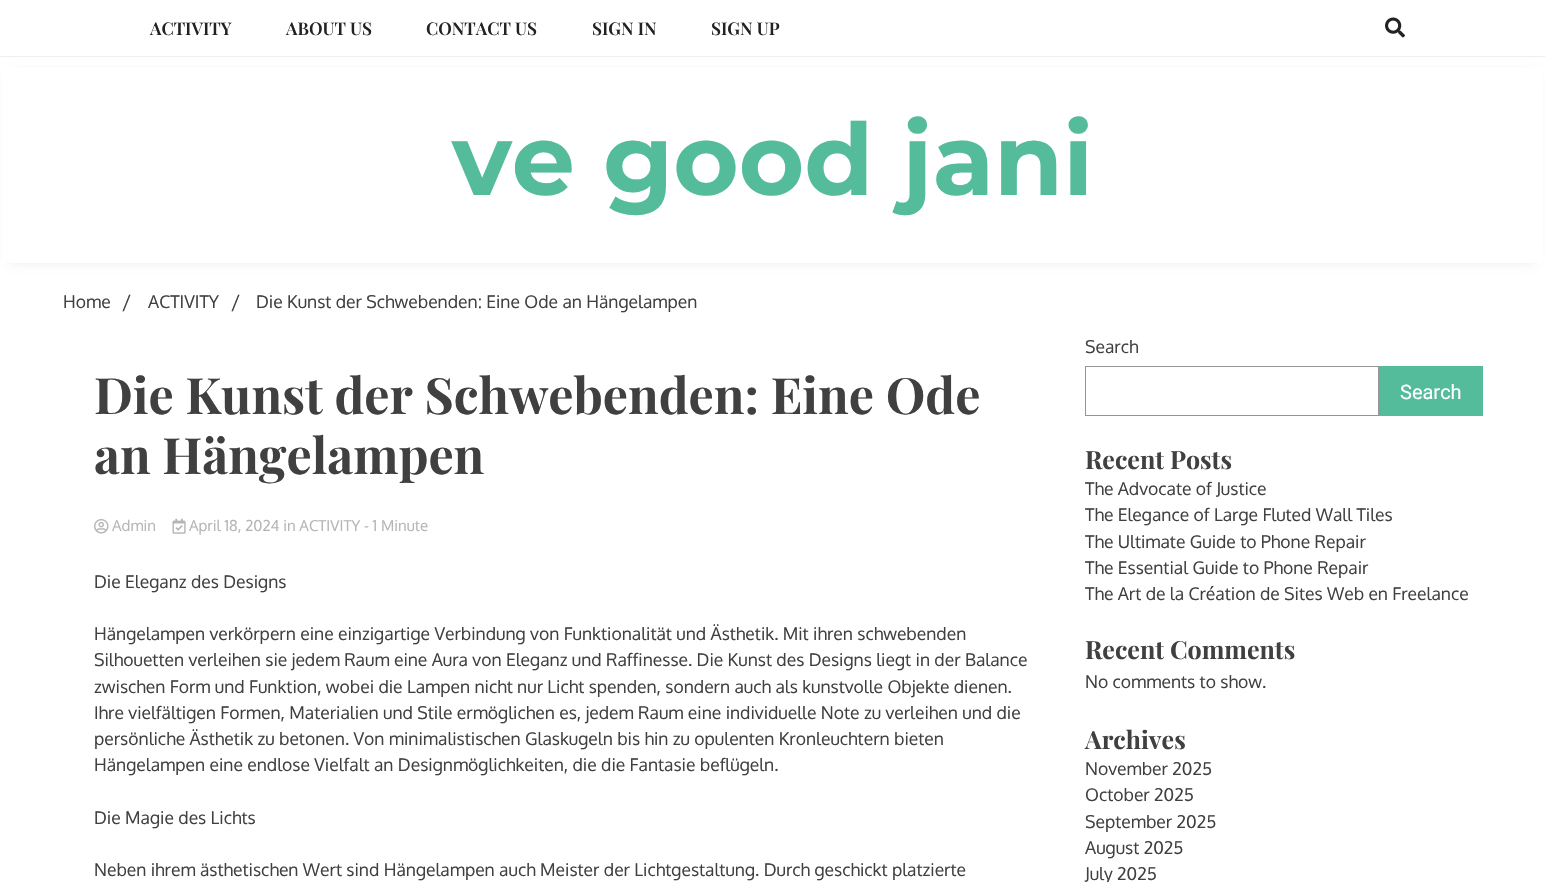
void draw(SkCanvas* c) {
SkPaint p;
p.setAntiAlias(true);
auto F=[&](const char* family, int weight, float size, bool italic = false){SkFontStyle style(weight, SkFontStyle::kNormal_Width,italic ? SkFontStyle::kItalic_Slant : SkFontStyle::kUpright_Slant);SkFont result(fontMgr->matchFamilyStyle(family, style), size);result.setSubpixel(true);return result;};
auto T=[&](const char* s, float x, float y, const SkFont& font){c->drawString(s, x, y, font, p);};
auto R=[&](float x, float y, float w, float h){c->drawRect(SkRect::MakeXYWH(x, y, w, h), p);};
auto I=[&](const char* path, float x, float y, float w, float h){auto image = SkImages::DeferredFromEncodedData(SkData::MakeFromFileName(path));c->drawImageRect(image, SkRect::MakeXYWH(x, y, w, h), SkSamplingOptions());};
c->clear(0xffffffff);
p.setColor(0xffefeeee);
R(0,56,1545,1);
auto f1 = F("Playfair Display",600,17.5);
p.setColor(0xff222222);
T("ACTIVITY",150,35,f1);
T("ABOUT US",286,35,f1);
T("CONTACT US",426,35,f1);
T("SIGN IN",592,35,f1);
T("SIGN UP",711,35,f1);
I("1.png",1385,17,20,21);
p.setColor(0x21000000);
p.setMaskFilter(SkMaskFilter::MakeBlur(kNormal_SkBlurStyle, 5.5));
c->drawRect(SkRect::MakeXYWH(10,75,1525,185),p);
p.setMaskFilter(nullptr);
p.setColor(0xffffffff);
R(2,67,1541,196);
auto f2 = F("Montserrat",700,100);
p.setColor(0xff54bc9b);
T("ve good jani",452,195,f2);
auto f3 = F("Oxygen",400,17.5);
p.setColor(0xff404040);
T("Home",63,308,f3);
auto f4 = F("Oxygen",400,20);
T("/",122,309,f4);
T("ACTIVITY",148,308,f3);
T("/",231,309,f4);
T("Die Kunst der Schwebenden: Eine Ode an Hängelampen",256,308,f3);
auto f5 = F("Playfair Display",700,50);
T("Die Kunst der Schwebenden: Eine Ode",94,414,f5);
T("an Hängelampen",94,474,f5);
I("2.png",94,519,15,15);
auto f6 = F("Oxygen",400,15);
p.setColor(0xffb5b5b5);
T("Admin",112,531,f6);
I("3.png",172,518,14,16);
T("April 18, 2024 in ACTIVITY - 1 Minute",189,531,f6);
p.setColor(0xff404040);
T("Die Eleganz des Designs",94,588,f3);
T("Hängelampen verkörpern eine einzigartige Verbindung von Funktionalität und Ästhetik. Mit ihren schwebenden",94,640,f3);
T("Silhouetten verleihen sie jedem Raum eine Aura von Eleganz und Raffinesse. Die Kunst des Designs liegt in der Balance",94,666,f3);
T("zwischen Form und Funktion, wobei die Lampen nicht nur Licht spenden, sondern auch als kunstvolle Objekte dienen.",94,693,f3);
T("Ihre vielfältigen Formen, Materialien und Stile ermöglichen es, jedem Raum eine individuelle Note zu verleihen und die",94,719,f3);
T("persönliche Ästhetik zu betonen. Von minimalistischen Glaskugeln bis hin zu opulenten Kronleuchtern bieten",94,745,f3);
T("Hängelampen eine endlose Vielfalt an Designmöglichkeiten, die die Fantasie beflügeln.",94,771,f3);
T("Die Magie des Lichts",94,824,f3);
T("Neben ihrem ästhetischen Wert sind Hängelampen auch Meister der Lichtgestaltung. Durch geschickt platzierte",94,876,f3);
T("Search",1085,353,f3);
p.setStroke(true);
p.setStrokeWidth(1);
p.setColor(0xff949494);
c->drawRect(SkRect::MakeXYWH(1085.5,366.5,293,49),p);
p.setStroke(false);
p.setColor(0xff54bc9b);
R(1379,366,104,50);
auto f7 = F("Roboto",400,20);
p.setColor(0xffffffff);
T("Search",1400,399,f7);
auto f8 = F("Playfair Display",700,25);
p.setColor(0xff404040);
T("Recent Posts",1085,469,f8);
T("The Advocate of Justice",1085,495,f3);
T("The Elegance of Large Fluted Wall Tiles",1085,521,f3);
T("The Ultimate Guide to Phone Repair",1085,548,f3);
T("The Essential Guide to Phone Repair",1085,574,f3);
T("The Art de la Création de Sites Web en Freelance",1085,600,f3);
T("Recent Comments",1085,659,f8);
T("No comments to show.",1085,688,f3);
T("Archives",1085,749,f8);
T("November 2025",1085,775,f3);
T("October 2025",1085,801,f3);
T("September 2025",1085,828,f3);
T("August 2025",1085,854,f3);
T("July 2025",1085,880,f3);
}
